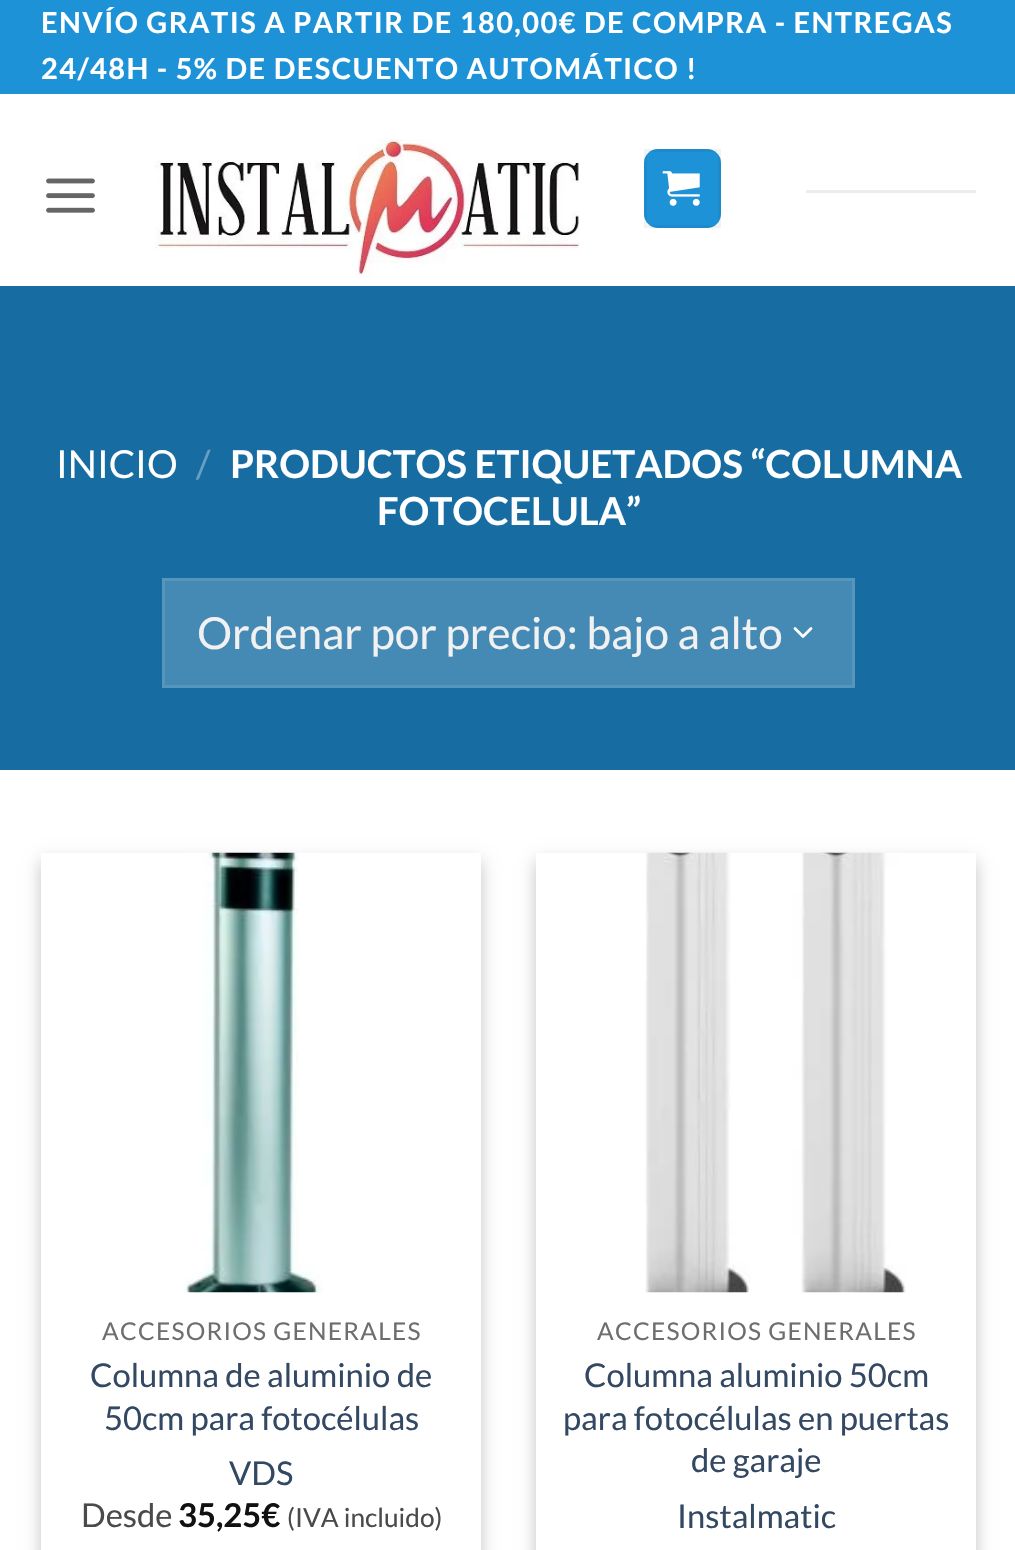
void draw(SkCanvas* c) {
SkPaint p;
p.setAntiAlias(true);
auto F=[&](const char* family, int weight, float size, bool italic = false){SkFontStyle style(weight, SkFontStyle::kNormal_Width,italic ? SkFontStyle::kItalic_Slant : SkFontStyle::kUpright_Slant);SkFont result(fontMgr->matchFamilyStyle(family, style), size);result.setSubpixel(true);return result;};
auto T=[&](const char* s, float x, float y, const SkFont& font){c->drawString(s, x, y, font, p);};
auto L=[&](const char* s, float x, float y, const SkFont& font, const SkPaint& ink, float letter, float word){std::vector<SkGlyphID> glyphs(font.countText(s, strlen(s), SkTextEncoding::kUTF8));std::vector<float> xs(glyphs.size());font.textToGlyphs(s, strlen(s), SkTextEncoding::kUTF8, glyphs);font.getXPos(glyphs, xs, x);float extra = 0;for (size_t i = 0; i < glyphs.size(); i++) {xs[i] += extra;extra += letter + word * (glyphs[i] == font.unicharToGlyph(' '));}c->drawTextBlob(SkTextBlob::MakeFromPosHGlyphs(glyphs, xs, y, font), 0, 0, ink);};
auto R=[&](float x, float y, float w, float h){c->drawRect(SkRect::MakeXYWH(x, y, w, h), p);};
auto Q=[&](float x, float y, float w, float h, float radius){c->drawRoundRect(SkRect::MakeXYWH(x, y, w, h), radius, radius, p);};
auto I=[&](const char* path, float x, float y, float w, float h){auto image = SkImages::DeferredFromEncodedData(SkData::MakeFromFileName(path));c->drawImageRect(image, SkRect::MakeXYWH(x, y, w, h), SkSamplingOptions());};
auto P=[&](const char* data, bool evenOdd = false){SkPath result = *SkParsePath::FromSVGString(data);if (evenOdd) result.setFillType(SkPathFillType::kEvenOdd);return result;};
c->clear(0xffffffff);
p.setColor(0xff1e92d6);
R(0,0,1015,94);
auto f1 = F("Lato",700,28.9);
p.setColor(0xffffffff);
L("ENVÍO GRATIS A PARTIR DE 180,00€ DE COMPRA - ENTREGAS",41,33,f1,p,1.45,0);
L("24/48H - 5% DE DESCUENTO AUTOMÁTICO !",41,79,f1,p,1.45,0);
I("1.png",46,178,49,35);
I("2.png",155,139,424,139);
p.setColor(0xff1e92d6);
Q(644,149,77,79,14);
p.setStroke(true);
p.setStrokeWidth(3);
p.setColor(0x0d000000);
c->drawRect(SkRect::MakeXYWH(645.5,150.5,74,76),p);
I("3.png",662,171,38,35);
p.setStroke(false);
p.setColor(0xffededed);
R(806,190,170,3);
p.setColor(0xff176da2);
R(0,286,1015,484);
auto f2 = F("Lato",400,38.5);
p.setColor(0xffffffff);
T("INICIO",56,478,f2);
p.setColor(0xff68a0c3);
T("/",196,478,f2);
auto f3 = F("Lato",700,38.5);
p.setColor(0xffffffff);
T("PRODUCTOS ETIQUETADOS “COLUMNA",230,478,f3);
T("FOTOCELULA”",377,525,f3);
p.setColor(0xff458ab5);
R(165,581,687,104);
p.setStroke(true);
p.setStrokeWidth(2.8);
p.setStrokeCap(SkPaint::kRound_Cap);
p.setStrokeJoin(SkPaint::kRound_Join);
p.setColor(0xffffffff);
c->drawPath(P("M795 628.5l8 8l8-8"),p);
p.setStrokeWidth(3);
p.setStrokeCap(SkPaint::kButt_Cap);
p.setStrokeJoin(SkPaint::kMiter_Join);
p.setColor(0xff5695bc);
c->drawRect(SkRect::MakeXYWH(163.5,579.5,690,107),p);
auto f4 = F("Lato",400,44);
p.setStroke(false);
p.setColor(0xfff1f1f1);
T("Ordenar por precio: bajo a alto",197,649,f4);
p.setColor(0x3b000000);
p.setMaskFilter(SkMaskFilter::MakeBlur(kNormal_SkBlurStyle, 8));
c->drawRect(SkRect::MakeXYWH(41,861,440,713),p);
p.setMaskFilter(nullptr);
p.setColor(0xffffffff);
R(41,853,440,697);
I("4.png",183,852,140,441);
auto f5 = F("Lato",400,24.5);
p.setColor(0xff6e6e6e);
L("ACCESORIOS GENERALES",102,1340,f5,p,1.25,0);
auto f6 = F("Lato",400,32.75);
p.setColor(0xff334862);
T("Columna de aluminio de",90,1387,f6);
T("50cm para fotocélulas",104,1430,f6);
T("VDS",229,1485,f6);
p.setColor(0xff4a4a4a);
T("Desde",81,1527,f6);
auto f7 = F("Lato",700,32.75);
p.setColor(0xff111111);
T("35,25€",178,1527,f7);
auto f8 = F("Lato",400,26.25);
p.setColor(0xff4a4a4a);
T("(IVA incluido)",287,1527,f8);
p.setColor(0x3b000000);
p.setMaskFilter(SkMaskFilter::MakeBlur(kNormal_SkBlurStyle, 8));
c->drawRect(SkRect::MakeXYWH(536,861,440,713),p);
p.setMaskFilter(nullptr);
p.setColor(0xffffffff);
R(536,853,440,697);
I("5.png",645,852,261,441);
p.setColor(0xff6e6e6e);
L("ACCESORIOS GENERALES",597,1340,f5,p,1.25,0);
p.setColor(0xff334862);
T("Columna aluminio 50cm",584,1387,f6);
T("para fotocélulas en puertas",563,1430,f6);
T("de garaje",691,1472,f6);
T("Instalmatic",677,1528,f6);
}
